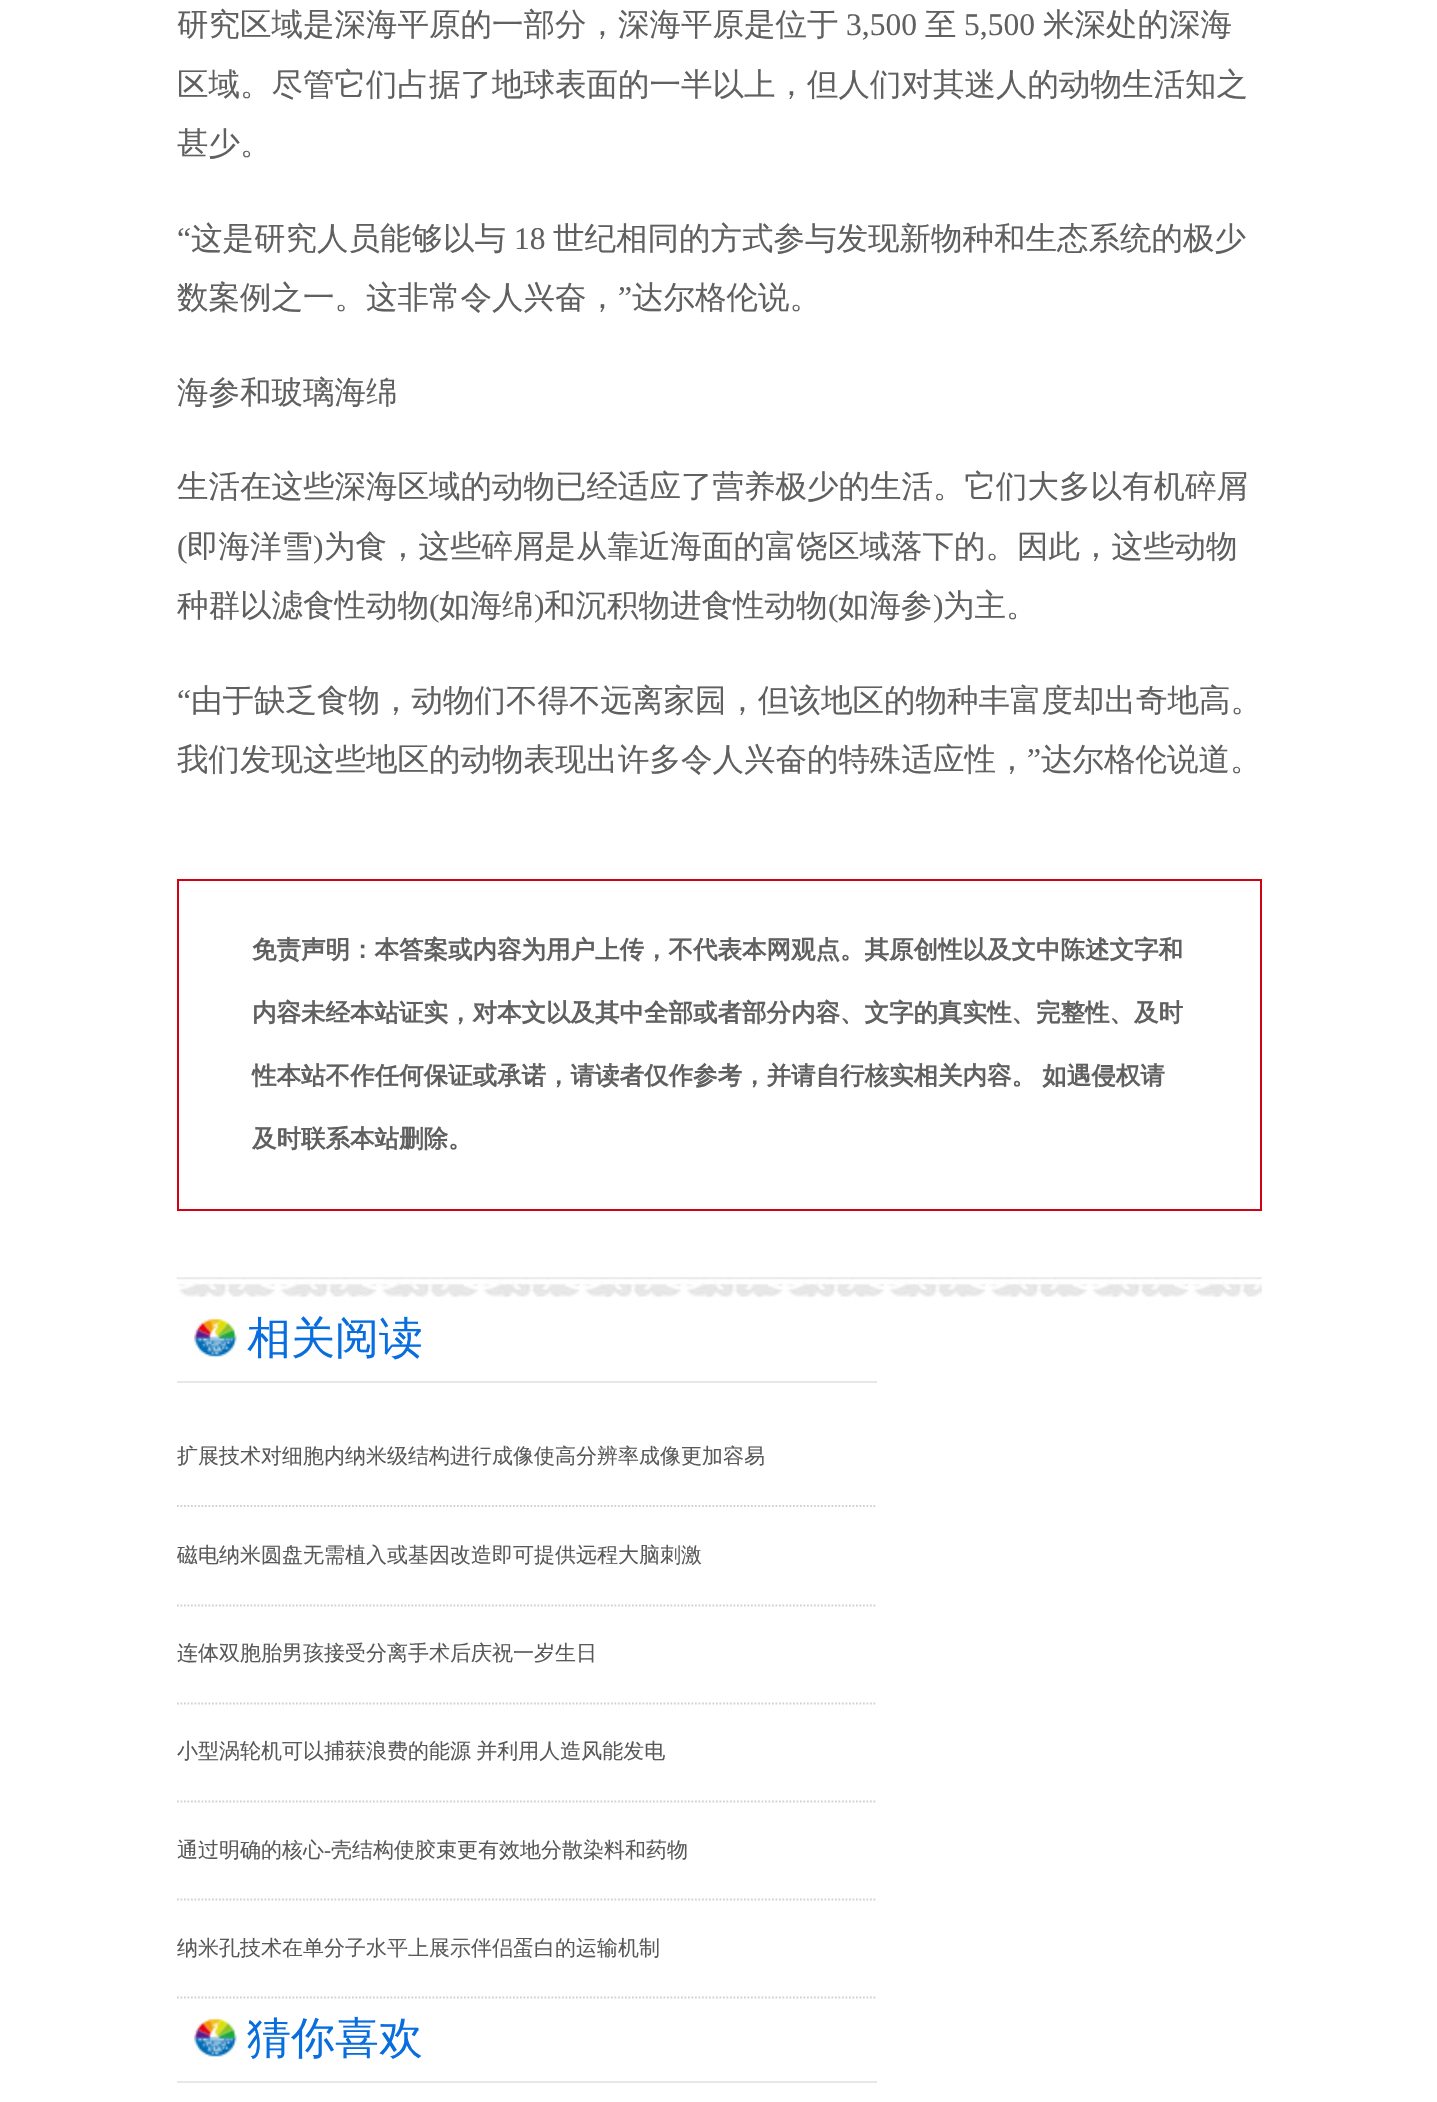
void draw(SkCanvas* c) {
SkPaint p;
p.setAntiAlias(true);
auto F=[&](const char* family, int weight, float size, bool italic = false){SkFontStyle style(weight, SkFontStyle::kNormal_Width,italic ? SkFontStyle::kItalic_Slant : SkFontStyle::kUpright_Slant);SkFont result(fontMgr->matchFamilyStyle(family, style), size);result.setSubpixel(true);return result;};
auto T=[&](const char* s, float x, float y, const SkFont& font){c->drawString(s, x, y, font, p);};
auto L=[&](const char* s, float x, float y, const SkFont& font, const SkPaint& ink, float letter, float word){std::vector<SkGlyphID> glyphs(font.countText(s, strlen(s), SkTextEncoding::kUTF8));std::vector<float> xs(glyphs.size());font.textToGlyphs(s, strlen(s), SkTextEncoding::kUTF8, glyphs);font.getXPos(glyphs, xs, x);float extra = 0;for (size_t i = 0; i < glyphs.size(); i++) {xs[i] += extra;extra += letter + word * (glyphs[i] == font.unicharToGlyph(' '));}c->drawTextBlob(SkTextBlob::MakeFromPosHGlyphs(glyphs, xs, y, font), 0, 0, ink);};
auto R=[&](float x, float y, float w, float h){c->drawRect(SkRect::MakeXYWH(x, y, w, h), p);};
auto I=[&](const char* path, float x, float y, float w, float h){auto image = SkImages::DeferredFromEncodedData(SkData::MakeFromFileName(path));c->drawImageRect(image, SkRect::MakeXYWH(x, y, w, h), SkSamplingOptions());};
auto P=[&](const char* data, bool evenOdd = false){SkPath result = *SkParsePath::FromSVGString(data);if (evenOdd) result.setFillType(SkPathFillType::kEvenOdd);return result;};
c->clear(0xffffffff);
I("1.png",176,1277,1086,21);
auto f1 = F("WenQuanYi Zen Hei",500,31.5);
p.setColor(0xff606060);
T("研究区域是深海平原的一部分，深海平原是位于",177,35,f1);
auto f2 = F("Liberation Serif",400,31.5);
T("3,500",846,35,f2);
T("至",925,35,f1);
T("5,500",964,35,f2);
T("米深处的深海",1043,35,f1);
T("区域。尽管它们占据了地球表面的一半以上，但人们对其迷人的动物生活知之",177,95,f1);
T("甚少。",177,154,f1);
T("“",177,249,f2);
T("这是研究人员能够以与",191,249,f1);
T("18",514,249,f2);
T("世纪相同的方式参与发现新物种和生态系统的极少",553,249,f1);
T("数案例之一。这非常令人兴奋，",177,308,f1);
T("”",618,308,f2);
T("达尔格伦说。",632,308,f1);
T("海参和玻璃海绵",177,403,f1);
T("生活在这些深海区域的动物已经适应了营养极少的生活。它们大多以有机碎屑",177,497,f1);
T("(",177,557,f2);
T("即海洋雪",187,557,f1);
T(")",313,557,f2);
T("为食，这些碎屑是从靠近海面的富饶区域落下的。因此，这些动物",324,557,f1);
T("种群以滤食性动物",177,616,f1);
T("(",429,616,f2);
T("如海绵",439,616,f1);
T(")",534,616,f2);
T("和沉积物进食性动物",544,616,f1);
T("(",828,616,f2);
T("如海参",838,616,f1);
T(")",933,616,f2);
T("为主。",943,616,f1);
T("“",177,711,f2);
T("由于缺乏食物，动物们不得不远离家园，但该地区的物种丰富度却出奇地高。",191,711,f1);
T("我们发现这些地区的动物表现出许多令人兴奋的特殊适应性，",177,770,f1);
T("”",1027,770,f2);
T("达尔格伦说道。",1041,770,f1);
p.setStroke(true);
p.setStrokeWidth(2);
p.setColor(0xffd20215);
c->drawRect(SkRect::MakeXYWH(178,880,1083,330),p);
auto f3 = F("WenQuanYi Zen Hei",700,24.5);
p.setStroke(false);
p.setColor(0xff606060);
T("免责声明：本答案或内容为用户上传，不代表本网观点。其原创性以及文中陈述文字和",252,958,f3);
T("内容未经本站证实，对本文以及其中全部或者部分内容、文字的真实性、完整性、及时",252,1021,f3);
L("性本站不作任何保证或承诺，请读者仅作参考，并请自行核实相关内容。 如遇侵权请",252,1084,f3,p,0,-1);
T("及时联系本站删除。",252,1147,f3);
p.setColor(0xffe7e7e7);
R(177,1381,700,2);
I("2.png",194,1318,43,39);
auto f4 = F("WenQuanYi Zen Hei",500,44);
p.setColor(0xff086ee0);
T("相关阅读",247,1353,f4);
p.setStroke(true);
p.setStrokeWidth(1.8);
p.setColor(0xffd4d1d1);
p.setPathEffect(SkDashPathEffect::Make({{1.75f,1.75f}}, 0));
c->drawPath(P("M177 1506h700"),p);
p.setPathEffect(nullptr);
auto f5 = F("WenQuanYi Zen Hei",500,21);
p.setStroke(false);
p.setColor(0xff595959);
T("扩展技术对细胞内纳米级结构进行成像使高分辨率成像更加容易",177,1463,f5);
p.setStroke(true);
p.setColor(0xffd4d1d1);
p.setPathEffect(SkDashPathEffect::Make({{1.75f,1.75f}}, 0));
c->drawPath(P("M177 1605.5h700"),p);
p.setPathEffect(nullptr);
p.setStroke(false);
p.setColor(0xff595959);
T("磁电纳米圆盘无需植入或基因改造即可提供远程大脑刺激",177,1562,f5);
p.setStroke(true);
p.setColor(0xffd4d1d1);
p.setPathEffect(SkDashPathEffect::Make({{1.75f,1.75f}}, 0));
c->drawPath(P("M177 1703.5h700"),p);
p.setPathEffect(nullptr);
p.setStroke(false);
p.setColor(0xff595959);
T("连体双胞胎男孩接受分离手术后庆祝一岁生日",177,1660,f5);
p.setStroke(true);
p.setColor(0xffd4d1d1);
p.setPathEffect(SkDashPathEffect::Make({{1.75f,1.75f}}, 0));
c->drawPath(P("M177 1801.5h700"),p);
p.setPathEffect(nullptr);
p.setStroke(false);
p.setColor(0xff595959);
L("小型涡轮机可以捕获浪费的能源 并利用人造风能发电",177,1758,f5,p,0,-1);
p.setStroke(true);
p.setColor(0xffd4d1d1);
p.setPathEffect(SkDashPathEffect::Make({{1.75f,1.75f}}, 0));
c->drawPath(P("M177 1899.5h700"),p);
p.setPathEffect(nullptr);
p.setStroke(false);
p.setColor(0xff595959);
T("通过明确的核心",177,1857,f5);
auto f6 = F("Liberation Serif",400,21);
T("-",324,1857,f6);
T("壳结构使胶束更有效地分散染料和药物",331,1857,f5);
p.setStroke(true);
p.setColor(0xffd4d1d1);
p.setPathEffect(SkDashPathEffect::Make({{1.75f,1.75f}}, 0));
c->drawPath(P("M177 1997.5h700"),p);
p.setPathEffect(nullptr);
p.setStroke(false);
p.setColor(0xff595959);
T("纳米孔技术在单分子水平上展示伴侣蛋白的运输机制",177,1955,f5);
p.setColor(0xffe7e7e7);
R(177,2081,700,2);
I("2.png",194,2018,43,39);
p.setColor(0xff086ee0);
T("猜你喜欢",247,2053,f4);
}
